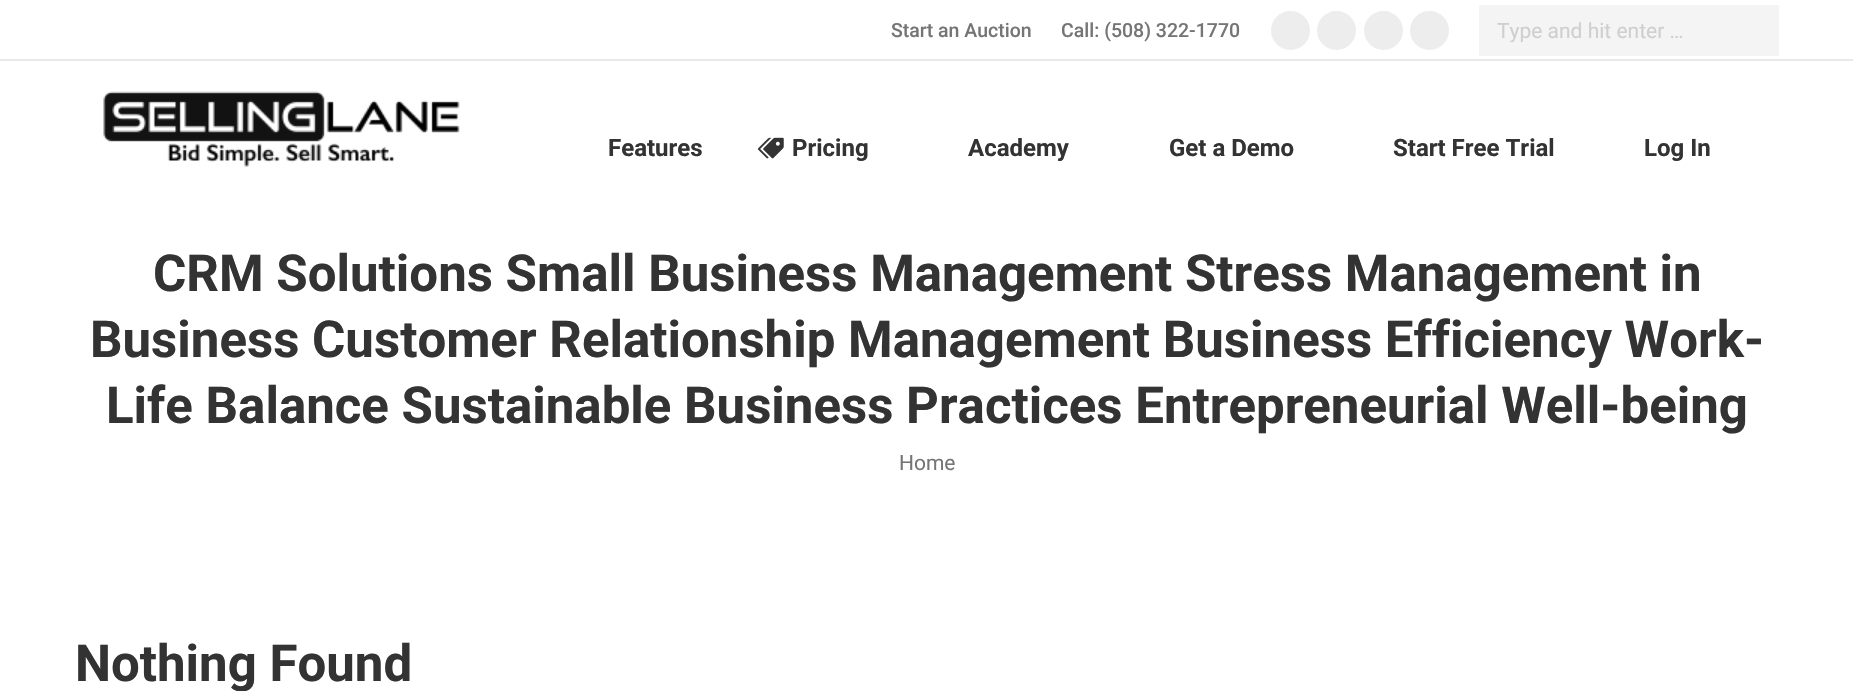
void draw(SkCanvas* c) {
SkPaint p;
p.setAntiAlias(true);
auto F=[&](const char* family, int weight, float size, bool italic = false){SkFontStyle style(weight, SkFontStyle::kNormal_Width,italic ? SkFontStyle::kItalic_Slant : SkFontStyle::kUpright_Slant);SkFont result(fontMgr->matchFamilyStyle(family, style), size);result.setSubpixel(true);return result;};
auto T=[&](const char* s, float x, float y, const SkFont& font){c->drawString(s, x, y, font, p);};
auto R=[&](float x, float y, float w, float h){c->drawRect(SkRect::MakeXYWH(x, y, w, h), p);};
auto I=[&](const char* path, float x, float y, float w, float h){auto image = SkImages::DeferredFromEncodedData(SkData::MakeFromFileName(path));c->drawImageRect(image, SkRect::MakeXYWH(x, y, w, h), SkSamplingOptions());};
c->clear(0xffffffff);
auto f1 = F("Roboto",500,19.5);
p.setColor(0xff757575);
T("Start an Auction",891,37,f1);
T("Call: (508) 322-1770",1061,37,f1);
p.setColor(0xffededed);
c->drawCircle(1290.5,30.5,19.5,p);
c->drawCircle(1336.5,30.5,19.5,p);
c->drawCircle(1383.5,30.5,19.5,p);
c->drawCircle(1429.5,30.5,19.5,p);
p.setColor(0xfff4f4f4);
R(1479,5,300,51);
c->save();
c->clipRect(SkRect::MakeXYWH(1497,18,264,24));
auto f2 = F("Roboto",400,21);
p.setColor(0xffcfcfcf);
T("Type and hit enter …",1497,38,f2);
c->restore();
p.setColor(0xffe9e9e9);
R(0,59,1853,2);
I("1.png",103,91,357,76);
auto f3 = F("Roboto",700,24);
p.setColor(0xff333333);
T("Features",608,156,f3);
I("2.png",757,137,27,22);
T("Pricing",792,156,f3);
T("Academy",968,156,f3);
T("Get a Demo",1169,156,f3);
T("Start Free Trial",1393,156,f3);
T("Log In",1644,156,f3);
auto f4 = F("Roboto",700,51);
T("CRM Solutions Small Business Management Stress Management in",153,291,f4);
T("Business Customer Relationship Management Business Efficiency Work-",90,357,f4);
T("Life Balance Sustainable Business Practices Entrepreneurial Well-being",106,423,f4);
p.setColor(0xff757575);
T("Home",899,470,f2);
p.setColor(0xff333333);
T("Nothing Found",75,681,f4);
}
